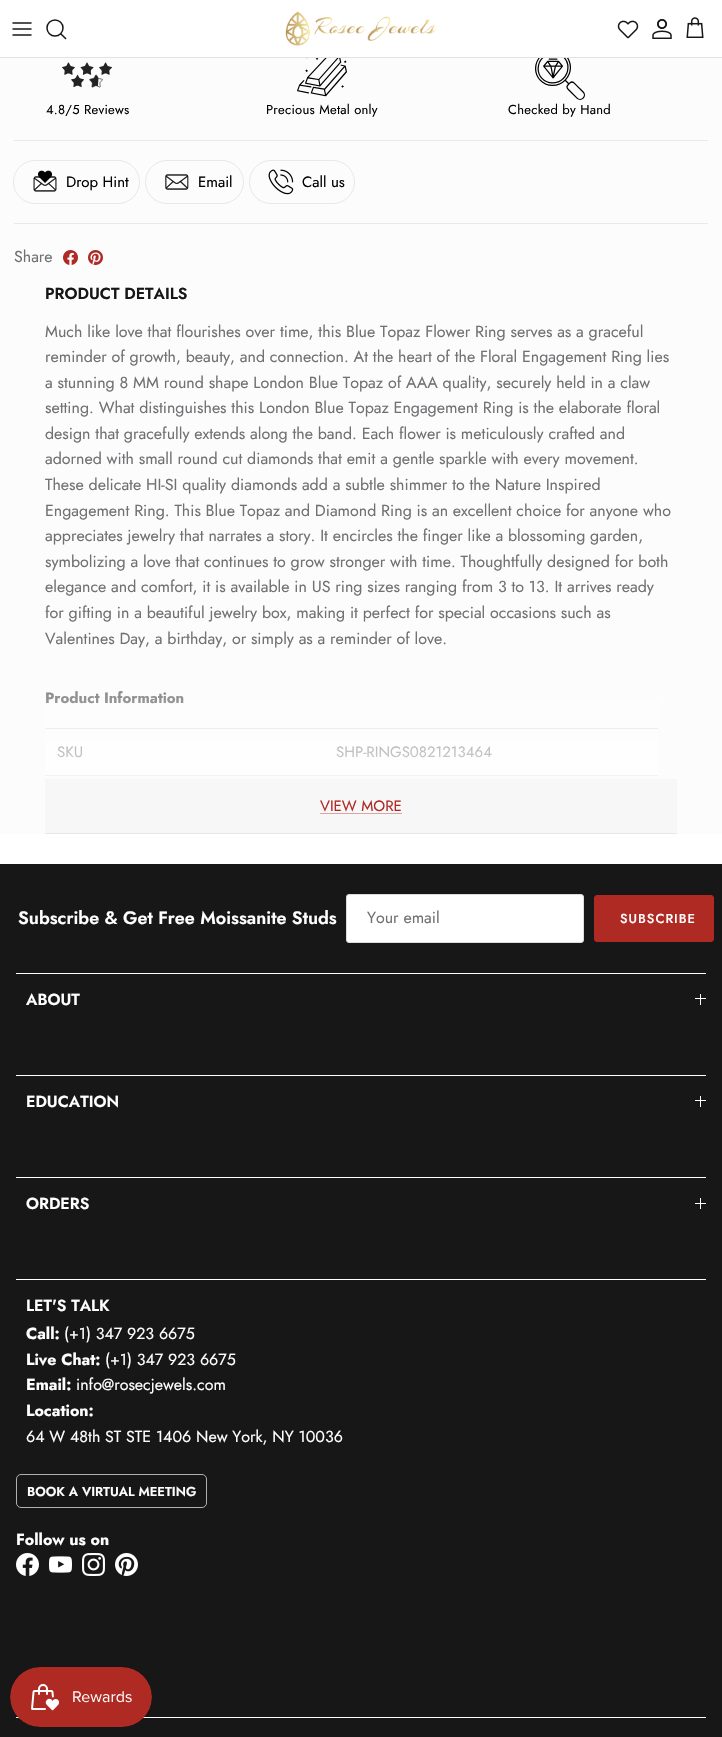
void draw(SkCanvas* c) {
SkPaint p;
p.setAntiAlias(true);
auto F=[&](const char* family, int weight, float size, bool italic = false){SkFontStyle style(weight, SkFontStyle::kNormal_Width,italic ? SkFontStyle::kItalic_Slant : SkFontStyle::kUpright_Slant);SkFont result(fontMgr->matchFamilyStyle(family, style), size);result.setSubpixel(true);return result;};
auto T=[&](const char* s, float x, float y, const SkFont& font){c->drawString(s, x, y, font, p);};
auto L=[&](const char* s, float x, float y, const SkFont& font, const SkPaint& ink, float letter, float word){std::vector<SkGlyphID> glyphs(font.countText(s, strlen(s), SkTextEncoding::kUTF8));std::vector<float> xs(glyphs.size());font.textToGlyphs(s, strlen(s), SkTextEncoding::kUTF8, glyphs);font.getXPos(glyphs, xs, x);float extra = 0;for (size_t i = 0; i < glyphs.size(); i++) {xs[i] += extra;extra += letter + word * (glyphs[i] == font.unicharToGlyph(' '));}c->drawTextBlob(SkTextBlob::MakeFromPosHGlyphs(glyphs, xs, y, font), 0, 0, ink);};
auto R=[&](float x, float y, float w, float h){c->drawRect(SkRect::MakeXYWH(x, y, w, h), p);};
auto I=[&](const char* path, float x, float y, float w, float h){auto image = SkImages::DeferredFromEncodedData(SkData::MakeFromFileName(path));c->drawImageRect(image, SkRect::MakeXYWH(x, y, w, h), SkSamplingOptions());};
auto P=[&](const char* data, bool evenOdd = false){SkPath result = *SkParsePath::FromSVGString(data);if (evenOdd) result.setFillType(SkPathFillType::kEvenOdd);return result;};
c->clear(0xffffffff);
p.setColor(0xffdfe3e8);
R(0,57,722,1);
p.setStroke(true);
p.setStrokeWidth(1.5);
p.setStrokeCap(SkPaint::kRound_Cap);
p.setStrokeJoin(SkPaint::kRound_Join);
p.setColor(0xff171717);
c->drawPath(P("M13 29h18m-18-6h18m-18 12h18"),p);
p.setStrokeCap(SkPaint::kButt_Cap);
p.setStrokeJoin(SkPaint::kMiter_Join);
c->drawCircle(55,28,8,p);
p.setStrokeCap(SkPaint::kSquare_Cap);
c->drawPath(P("M61 34l4.5 4.5"),p);
I("1.png",285,11,152,35);
I("2.png",617,20,22,19);
I("3.png",652,19,20,20);
I("4.png",686,17,18,21);
p.setStroke(false);
p.setColor(0xfffcfcfd);
R(0,58,722,776);
I("5.png",62,62,50,26);
auto f1 = F("Jost",400,13);
p.setColor(0xff000000);
L("4.8/5 Reviews",46,114,f1,p,.25,0);
I("6.png",297,58,50,39);
L("Precious Metal only",266,114,f1,p,.25,0);
I("7.png",535,58,50,42);
L("Checked by Hand",508,114,f1,p,.25,0);
p.setColor(0xffe8e9ea);
R(14,140,694,1);
I("8.png",33,170,24,22);
p.setStroke(true);
p.setStrokeWidth(1);
p.setStrokeCap(SkPaint::kButt_Cap);
p.setColor(0xffe8e8e8);
c->drawRoundRect(SkRect::MakeXYWH(13.5,160.5,126,43),21.5,21.5,p);
auto f2 = F("Jost",400,15);
p.setStroke(false);
p.setColor(0xff000000);
T("Drop Hint",66,187,f2);
I("9.png",165,174,24,16);
p.setStroke(true);
p.setColor(0xffe8e8e8);
c->drawRoundRect(SkRect::MakeXYWH(145.5,160.5,98,43),21.5,21.5,p);
p.setStroke(false);
p.setColor(0xff000000);
T("Email",198,187,f2);
I("10.png",268,169,26,26);
p.setStroke(true);
p.setColor(0xffe8e8e8);
c->drawRoundRect(SkRect::MakeXYWH(249.5,160.5,105,43),21.5,21.5,p);
p.setStroke(false);
p.setColor(0xff000000);
T("Call us",302,187,f2);
p.setColor(0xffe8e9ea);
R(14,223,694,1);
auto f3 = F("Jost",400,16);
p.setColor(0xff707173);
T("Share",14,262,f3);
I("11.png",63,250,15,15);
I("12.png",88,250,15,15);
auto f4 = F("Jost",600,16);
p.setColor(0xff171717);
T("PRODUCT DETAILS",45,299,f4);
p.setColor(0xff707173);
T("Much like love that flourishes over time, this Blue Topaz Flower Ring serves as a graceful",45,337,f3);
T("reminder of growth, beauty, and connection. At the heart of the Floral Engagement Ring lies",45,362,f3);
T("a stunning 8 MM round shape London Blue Topaz of AAA quality, securely held in a claw",45,388,f3);
T("setting. What distinguishes this London Blue Topaz Engagement Ring is the elaborate floral",45,413,f3);
T("design that gracefully extends along the band. Each flower is meticulously crafted and",45,439,f3);
T("adorned with small round cut diamonds that emit a gentle sparkle with every movement.",45,464,f3);
T("These delicate HI-SI quality diamonds add a subtle shimmer to the Nature Inspired",45,490,f3);
T("Engagement Ring. This Blue Topaz and Diamond Ring is an excellent choice for anyone who",45,516,f3);
T("appreciates jewelry that narrates a story. It encircles the finger like a blossoming garden,",45,541,f3);
T("symbolizing a love that continues to grow stronger with time. Thoughtfully designed for both",45,567,f3);
T("elegance and comfort, it is available in US ring sizes ranging from 3 to 13. It arrives ready",45,592,f3);
T("for gifting in a beautiful jewelry box, making it perfect for special occasions such as",45,618,f3);
T("Valentines Day, a birthday, or simply as a reminder of love.",45,644,f3);
auto f5 = F("Jost",700,15);
T("Product Information",45,703,f5);
T("SKU",57,757,f2);
p.setColor(0xffdee2e6);
R(45,728,613,1);
p.setColor(0xffcfd2d6);
R(45,775,613,1);
p.setColor(0xffc2c4c8);
R(324,775,1,1);
p.setColor(0xff707173);
T("SHP-RINGS0821213464",336,757,f2);
{
const SkColor colors[] = {0x14ffffff,0x91ffffff,0xccffffff};
const float stops[] = {0,.49,.72};
const SkPoint ends[] = {{361,674}, {361,834}};
p.setShader(SkGradientShader::MakeLinear(ends, colors, stops, 3, SkTileMode::kClamp));
p.setAlpha(255);
}
R(45,691,613,85);
p.setShader(nullptr);
p.setColor(0xfff7f7f7);
R(45,779,632,54);
p.setColor(0xffe8e8e8);
R(45,833,632,1);
p.setColor(0xffae2a23);
T("VIEW MORE",320,811,f2);
p.setColor(0xffdaa5a2);
R(320,813,82,1);
p.setColor(0xff171717);
R(0,864,722,873);
auto f6 = F("Jost",600,18);
p.setColor(0xffffffff);
T("Subscribe & Get Free Moissanite Studs",18,924,f6);
c->drawRoundRect(SkRect::MakeXYWH(346.5,894.5,237,48),2.5,2.5,p);
p.setStroke(true);
p.setColor(0xffdbdcdc);
c->drawRoundRect(SkRect::MakeXYWH(346.5,894.5,237,48),2.5,2.5,p);
p.setStroke(false);
p.setColor(0xff707173);
T("Your email",367,923,f3);
p.setColor(0xffae2a23);
c->drawRoundRect(SkRect::MakeXYWH(594.5,895.5,119,46),2.5,2.5,p);
p.setStroke(true);
c->drawRoundRect(SkRect::MakeXYWH(594.5,895.5,119,46),2.5,2.5,p);
auto f7 = F("Jost",500,13);
p.setStroke(false);
p.setColor(0xffffffff);
L("SUBSCRIBE",620,923,f7,p,1,0);
R(16,973,690,1);
T("ABOUT",26,1005,f4);
R(700,994,1,11);
R(695,998,11,1);
R(16,1075,690,1);
T("EDUCATION",26,1107,f4);
R(700,1096,1,11);
R(695,1100,11,1);
R(16,1177,690,1);
T("ORDERS",26,1209,f4);
R(700,1198,1,11);
R(695,1203,11,1);
R(16,1279,690,1);
T("LET'S TALK",26,1311,f4);
auto f8 = F("Jost",700,16);
T("Call:",26,1339,f8);
T("(+1) 347 923 6675",64,1339,f3);
T("Live Chat:",26,1365,f8);
T("(+1) 347 923 6675",105,1365,f3);
T("Email:",26,1390,f8);
T("info@rosecjewels.com",76,1390,f3);
T("Location:",26,1416,f8);
T("64 W 48th ST STE 1406 New York, NY 10036",26,1442,f3);
p.setStroke(true);
p.setColor(0xffb0b0b0);
c->drawRoundRect(SkRect::MakeXYWH(16.5,1474.5,190,33),4.5,4.5,p);
auto f9 = F("Jost",600,13);
p.setStroke(false);
p.setColor(0xffffffff);
T("BOOK A VIRTUAL MEETING",27,1496,f9);
T("Follow us on",16,1545,f8);
I("13.png",16,1553,23,23);
I("14.png",49,1556,23,17);
I("15.png",82,1553,23,23);
I("16.png",115,1553,23,23);
R(16,1717,690,1);
I("17.png",10,1667,142,60);
}
